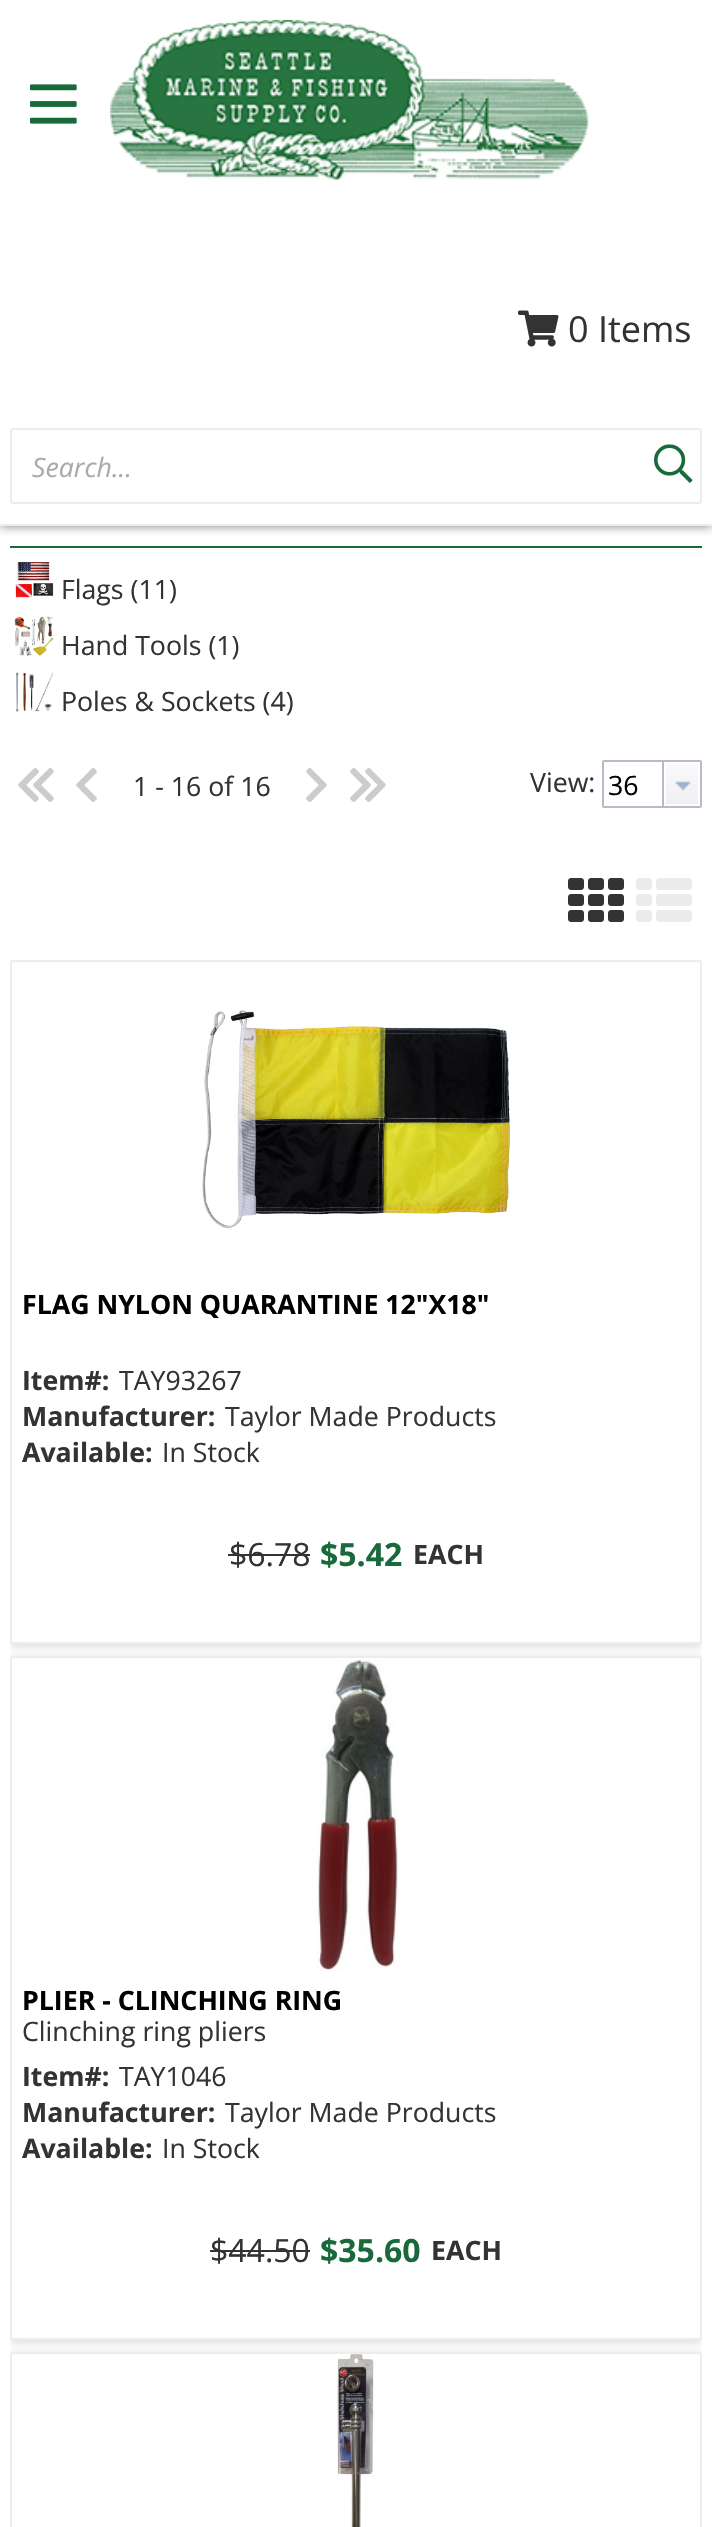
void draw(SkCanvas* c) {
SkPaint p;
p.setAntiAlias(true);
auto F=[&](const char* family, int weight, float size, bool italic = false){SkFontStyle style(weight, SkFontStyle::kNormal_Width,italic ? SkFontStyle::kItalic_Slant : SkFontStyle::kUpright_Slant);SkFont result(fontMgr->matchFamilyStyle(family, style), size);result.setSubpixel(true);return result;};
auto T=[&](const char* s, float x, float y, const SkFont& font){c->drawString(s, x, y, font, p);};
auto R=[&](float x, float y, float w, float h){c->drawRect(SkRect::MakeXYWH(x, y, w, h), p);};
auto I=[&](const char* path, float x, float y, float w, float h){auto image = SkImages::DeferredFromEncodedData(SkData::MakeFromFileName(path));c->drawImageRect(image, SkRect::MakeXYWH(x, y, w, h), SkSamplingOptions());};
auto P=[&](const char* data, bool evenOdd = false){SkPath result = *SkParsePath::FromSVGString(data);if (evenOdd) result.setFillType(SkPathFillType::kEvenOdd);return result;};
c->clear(0xffffffff);
p.setColor(0x80000000);
p.setMaskFilter(SkMaskFilter::MakeBlur(kNormal_SkBlurStyle, 5));
c->drawRect(SkRect::MakeXYWH(0,0,712,526),p);
p.setMaskFilter(nullptr);
p.setColor(0xffffffff);
R(0,0,712,524);
p.setColor(0xffededed);
R(0,524,712,2);
I("1.png",30,84,47,40);
I("2.png",110,20,479,160);
I("3.png",518,310,41,37);
auto f1 = F("Open Sans",400,36);
p.setColor(0xff333333);
T("0 Items",568,342,f1);
p.setStroke(true);
p.setStrokeWidth(2);
p.setColor(0xffededed);
c->drawRoundRect(SkRect::MakeXYWH(11,429,690,74),3,3,p);
auto f2 = F("Open Sans",400,26.7,true);
p.setStroke(false);
p.setColor(0xffaaaaaa);
T("Search...",32,477,f2);
I("4.png",654,444,39,39);
p.setColor(0xff186a3a);
R(10,546,692,2);
I("5.png",15,562,39,36);
auto f3 = F("Open Sans",400,26.7);
p.setColor(0xff333333);
T("Flags (11)",61,599,f3);
I("6.png",14,616,40,40);
T("Hand Tools (1)",61,655,f3);
I("7.png",16,672,38,40);
T("Poles & Sockets (4)",61,711,f3);
I("8.png",18,768,36,34);
I("9.png",76,768,21,34);
T("1 - 16 of 16",133,796,f3);
I("10.png",306,768,21,34);
I("11.png",350,768,36,34);
T("View:",530,792,f3);
p.setStroke(true);
p.setColor(0xffb5bcc7);
c->drawRoundRect(SkRect::MakeXYWH(603,761,98,46),1,1,p);
p.setStroke(false);
p.setColor(0xff000000);
T("36",608,795,f3);
{
const SkColor colors[] = {0xfffafafa,0xffefefef};
const float stops[] = {0,1};
const SkPoint ends[] = {{682,762}, {682,806}};
p.setShader(SkGradientShader::MakeLinear(ends, colors, stops, 2, SkTileMode::kClamp));
p.setAlpha(255);
}
R(666,764,32,40);
p.setShader(nullptr);
p.setColor(0xffb5bcc7);
R(662,762,2,44);
I("12.png",675,781,16,10);
I("13.png",568,878,56,44);
I("14.png",636,878,56,44);
c->save();
c->clipRect(SkRect::MakeXYWH(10,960,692,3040));
c->clipPath(P("M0 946h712v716h-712zm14 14h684c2 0 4 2 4 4v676c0 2-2 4-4 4h-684c-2 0-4-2-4-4v-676c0-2 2-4 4-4z",true),true);
p.setColor(0x26000000);
p.setMaskFilter(SkMaskFilter::MakeBlur(kNormal_SkBlurStyle, 5));
c->drawRoundRect(SkRect::MakeXYWH(10,962,692,684),4,4,p);
p.setMaskFilter(nullptr);
c->restore();
p.setStroke(true);
p.setColor(0xffededed);
c->drawRoundRect(SkRect::MakeXYWH(11,961,690,682),3,3,p);
I("15.png",202,1010,309,219);
c->save();
c->clipRect(SkRect::MakeXYWH(22,1292,668,26));
auto f4 = F("Open Sans",700,26.7);
p.setStroke(false);
p.setColor(0xff000000);
T("FLAG NYLON QUARANTINE 12\"X18\"",22,1314,f4);
c->restore();
p.setColor(0xff333333);
T("Item#:",22,1390,f4);
T("TAY93267",119,1390,f3);
T("Manufacturer:",22,1426,f4);
T("Taylor Made Products",225,1426,f3);
T("Available:",22,1462,f4);
T("In Stock",162,1462,f3);
auto f5 = F("Open Sans",400,32);
T("$6.78",229,1566,f5);
R(228,1554,82,2);
auto f6 = F("Open Sans",700,32);
p.setColor(0xff186a3a);
T("$5.42",320,1566,f6);
p.setColor(0xff333333);
T("EACH",413,1564,f4);
c->save();
c->clipRect(SkRect::MakeXYWH(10,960,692,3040));
c->clipPath(P("M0 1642h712v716h-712zm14 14h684c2 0 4 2 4 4v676c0 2-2 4-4 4h-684c-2 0-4-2-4-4v-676c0-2 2-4 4-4z",true),true);
p.setColor(0x26000000);
p.setMaskFilter(SkMaskFilter::MakeBlur(kNormal_SkBlurStyle, 5));
c->drawRoundRect(SkRect::MakeXYWH(10,1658,692,684),4,4,p);
p.setMaskFilter(nullptr);
c->restore();
p.setStroke(true);
p.setColor(0xffededed);
c->drawRoundRect(SkRect::MakeXYWH(11,1657,690,682),3,3,p);
I("16.png",316,1659,82,312);
p.setStroke(false);
p.setColor(0xff000000);
T("PLIER - CLINCHING RING",22,2010,f4);
p.setColor(0xff333333);
T("Clinching ring pliers",22,2041,f3);
T("Item#:",22,2086,f4);
T("TAY1046",119,2086,f3);
T("Manufacturer:",22,2122,f4);
T("Taylor Made Products",225,2122,f3);
T("Available:",22,2158,f4);
T("In Stock",162,2158,f3);
T("$44.50",210,2262,f5);
R(210,2250,100,2);
p.setColor(0xff186a3a);
T("$35.60",320,2262,f6);
p.setColor(0xff333333);
T("EACH",431,2260,f4);
c->save();
c->clipRect(SkRect::MakeXYWH(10,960,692,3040));
c->clipPath(P("M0 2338h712v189h-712zm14 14h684c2 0 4 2 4 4v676c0 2-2 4-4 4h-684c-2 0-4-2-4-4v-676c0-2 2-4 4-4z",true),true);
p.setColor(0x26000000);
p.setMaskFilter(SkMaskFilter::MakeBlur(kNormal_SkBlurStyle, 5));
c->drawRoundRect(SkRect::MakeXYWH(10,2354,692,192),4,4,p);
p.setMaskFilter(nullptr);
c->restore();
p.setStroke(true);
p.setColor(0xffededed);
c->drawRoundRect(SkRect::MakeXYWH(11,2353,690,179),3,3,p);
I("17.png",337,2354,37,173);
}
